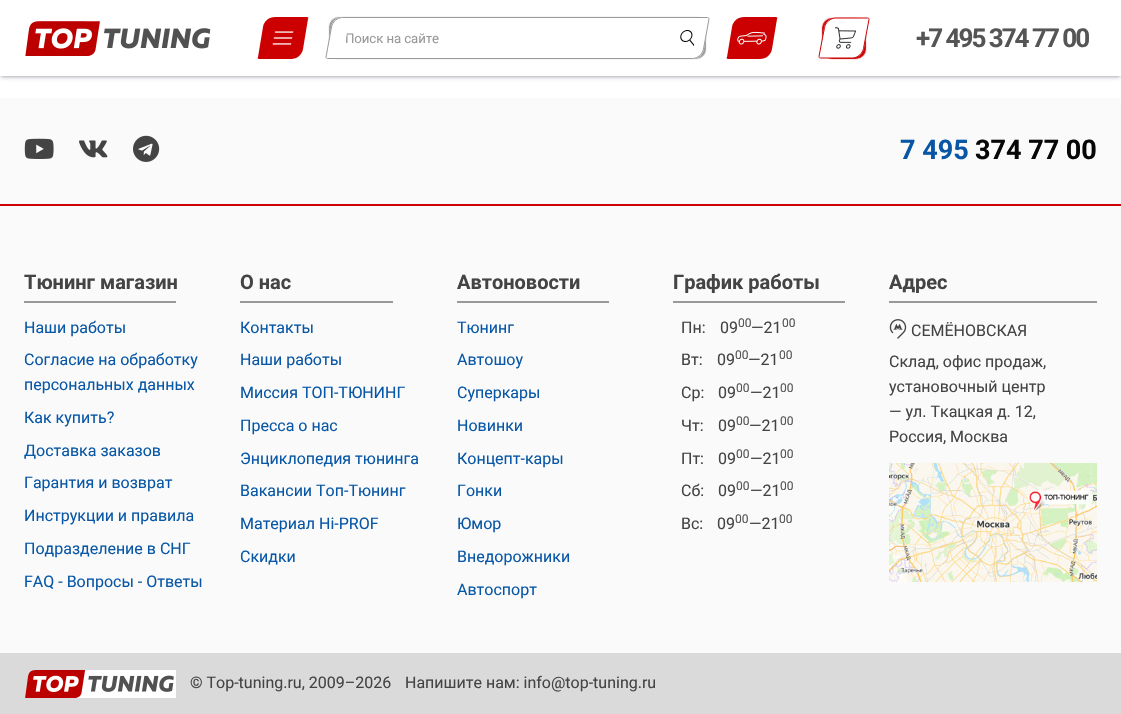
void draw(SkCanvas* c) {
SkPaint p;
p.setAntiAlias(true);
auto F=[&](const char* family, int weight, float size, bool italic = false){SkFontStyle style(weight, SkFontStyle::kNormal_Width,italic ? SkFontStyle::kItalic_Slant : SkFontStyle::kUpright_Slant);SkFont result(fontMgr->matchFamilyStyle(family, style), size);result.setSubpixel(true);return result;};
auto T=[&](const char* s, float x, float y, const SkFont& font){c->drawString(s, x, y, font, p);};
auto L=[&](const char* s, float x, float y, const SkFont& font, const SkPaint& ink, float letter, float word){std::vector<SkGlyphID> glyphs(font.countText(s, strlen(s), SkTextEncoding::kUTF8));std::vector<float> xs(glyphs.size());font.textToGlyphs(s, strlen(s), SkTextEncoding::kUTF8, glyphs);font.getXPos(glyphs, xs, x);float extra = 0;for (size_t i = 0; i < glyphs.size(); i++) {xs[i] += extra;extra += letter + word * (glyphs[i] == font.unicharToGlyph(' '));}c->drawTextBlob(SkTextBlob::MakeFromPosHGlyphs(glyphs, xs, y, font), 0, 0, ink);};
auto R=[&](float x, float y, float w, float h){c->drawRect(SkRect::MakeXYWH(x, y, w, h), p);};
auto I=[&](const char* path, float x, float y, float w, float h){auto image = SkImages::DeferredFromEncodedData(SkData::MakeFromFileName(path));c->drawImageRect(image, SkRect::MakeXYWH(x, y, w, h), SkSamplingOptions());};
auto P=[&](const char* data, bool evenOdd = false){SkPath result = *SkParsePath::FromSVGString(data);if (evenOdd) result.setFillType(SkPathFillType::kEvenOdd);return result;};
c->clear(0xffffffff);
p.setColor(0x4d000000);
p.setMaskFilter(SkMaskFilter::MakeBlur(kNormal_SkBlurStyle, 1.5));
c->drawRect(SkRect::MakeXYWH(1,2,1119,74),p);
p.setMaskFilter(nullptr);
p.setColor(0x4032325d);
p.setMaskFilter(SkMaskFilter::MakeBlur(kNormal_SkBlurStyle, 2.5));
c->drawRect(SkRect::MakeXYWH(1,3,1119,74),p);
p.setMaskFilter(nullptr);
p.setColor(0xffffffff);
R(0,0,1121,76);
I("1.png",25,21,186,35);
p.setColor(0xffcc0000);
c->drawPath(P("M275 17h32c1 0 2 1 1 2l-5 30c-1 6-6 10-12 10h-32c-1 0-2-1-1-2l5-30c1-6 6-10 12-10z"),p);
I("2.png",272,31,22,14);
p.setColor(0xff999999);
p.setMaskFilter(SkMaskFilter::MakeBlur(kNormal_SkBlurStyle, .5));
c->drawRoundRect(SkRect::MakeXYWH(329,17,377,42),10,10,p);
p.setMaskFilter(nullptr);
p.setColor(0xffffffff);
c->drawPath(P("M343 17h365c1 0 2 1 1 2l-5 30c-1 6-6 10-12 10h-365c-1 0-2-1-1-2l5-30c1-6 6-10 12-10z"),p);
p.setStroke(true);
p.setStrokeWidth(1);
p.setColor(0xff999999);
c->drawPath(P("M342.5 17.5h365c1 0 1.5 .5 1.5 1.5l-5.5 30c-1 5-6 9.5-11 9.5h-365c-1 0-1.5-.5-1.5-1.5l5.5-30c1-5 6-9.5 11-9.5z"),p);
c->save();
c->clipPath(P("M347.5 30.5h341l-3 15h-341z"),true);
auto f1 = F("Roboto",400,13.25);
p.setStroke(false);
L("Поиск на сайте",345,43,f1,p,-.1,0);
c->restore();
I("3.png",680,30,15,16);
p.setColor(0xffcc0000);
c->drawPath(P("M744 17h32c1 0 2 1 1 2l-5 30c-1 6-6 10-12 10h-32c-1 0-2-1-1-2l5-30c1-6 6-10 12-10z"),p);
I("4.png",737,31,30,14);
p.setMaskFilter(SkMaskFilter::MakeBlur(kNormal_SkBlurStyle, .5));
c->drawRoundRect(SkRect::MakeXYWH(822,18,44,41),10,10,p);
p.setMaskFilter(nullptr);
p.setColor(0xffffffff);
c->drawPath(P("M836 18h32c1 0 1 0 1 2l-5 28c-1 6-6 10-12 10h-32c-1 0-1 0-1-2l5-28c1-6 6-10 12-10z"),p);
p.setStroke(true);
p.setColor(0xffcc0000);
c->drawPath(P("M835.5 18h32c1 0 1.5 .5 1.5 1.5l-5.5 29c-1 5-6 9.5-11 9.5h-32c-1 0-1.5-.5-1.5-1.5l5.5-29c1-5 6-9.5 11-9.5z"),p);
I("5.png",835,27,21,22);
auto f2 = F("Roboto",700,26);
p.setStroke(false);
p.setColor(0xff555555);
L("+7 495 374 77 00",916,47,f2,p,-2,0);
p.setColor(0xfffafafa);
R(0,98,1121,555);
p.setColor(0xffcc0000);
R(0,204,1121,2);
I("6.png",24,138,30,21);
I("7.png",79,140,29,18);
I("8.png",133,135,27,27);
auto f3 = F("Roboto",700,27);
p.setColor(0xff0857a6);
T("7 495",900,159,f3);
p.setColor(0xff070707);
T("374 77 00",975,159,f3);
auto f4 = F("Roboto",700,20);
p.setColor(0xff444444);
T("Тюнинг магазин",24,289,f4);
p.setColor(0xff999999);
R(24,301,152,2);
auto f5 = F("Roboto",400,16);
p.setColor(0xff0857a6);
T("Наши работы",24,333,f5);
T("Согласие на обработку",24,365,f5);
T("персональных данных",24,390,f5);
T("Как купить?",24,423,f5);
T("Доставка заказов",24,456,f5);
T("Гарантия и возврат",24,488,f5);
T("Инструкции и правила",24,521,f5);
T("Подразделение в СНГ",24,554,f5);
T("FAQ - Вопросы - Ответы",24,587,f5);
p.setColor(0xff444444);
T("О нас",240,289,f4);
p.setColor(0xff999999);
R(240,301,153,2);
p.setColor(0xff0857a6);
T("Контакты",240,333,f5);
T("Наши работы",240,365,f5);
T("Миссия ТОП-ТЮНИНГ",240,398,f5);
T("Пресса о нас",240,431,f5);
T("Энциклопедия тюнинга",240,464,f5);
T("Вакансии Топ-Тюнинг",240,496,f5);
T("Материал Hi-PROF",240,529,f5);
T("Скидки",240,562,f5);
p.setColor(0xff444444);
T("Автоновости",457,289,f4);
p.setColor(0xff999999);
R(457,301,152,2);
p.setColor(0xff0857a6);
T("Тюнинг",457,333,f5);
T("Автошоу",457,365,f5);
T("Суперкары",457,398,f5);
T("Новинки",457,431,f5);
T("Концепт-кары",457,464,f5);
T("Гонки",457,496,f5);
T("Юмор",457,529,f5);
T("Внедорожники",457,562,f5);
T("Автоспорт",457,595,f5);
p.setColor(0xff444444);
T("График работы",673,289,f4);
p.setColor(0xff999999);
R(673,301,172,2);
p.setColor(0xff444444);
T("Пн:",681,333,f5);
T("09",720,333,f5);
auto f6 = F("Roboto",400,12);
p.setColor(0xff555555);
T("00",738,327,f6);
p.setColor(0xff444444);
T("—21",751,333,f5);
p.setColor(0xff555555);
T("00",782,327,f6);
p.setColor(0xff444444);
T("Вт:",681,365,f5);
T("09",717,365,f5);
p.setColor(0xff555555);
T("00",735,359,f6);
p.setColor(0xff444444);
T("—21",748,365,f5);
p.setColor(0xff555555);
T("00",779,359,f6);
p.setColor(0xff444444);
T("Ср:",681,398,f5);
T("09",718,398,f5);
p.setColor(0xff555555);
T("00",736,392,f6);
p.setColor(0xff444444);
T("—21",750,398,f5);
p.setColor(0xff555555);
T("00",780,392,f6);
p.setColor(0xff444444);
T("Чт:",681,431,f5);
T("09",718,431,f5);
p.setColor(0xff555555);
T("00",736,425,f6);
p.setColor(0xff444444);
T("—21",749,431,f5);
p.setColor(0xff555555);
T("00",780,425,f6);
p.setColor(0xff444444);
T("Пт:",681,464,f5);
T("09",718,464,f5);
p.setColor(0xff555555);
T("00",736,458,f6);
p.setColor(0xff444444);
T("—21",750,464,f5);
p.setColor(0xff555555);
T("00",780,458,f6);
p.setColor(0xff444444);
T("Сб:",681,496,f5);
T("09",718,496,f5);
p.setColor(0xff555555);
T("00",736,490,f6);
p.setColor(0xff444444);
T("—21",750,496,f5);
p.setColor(0xff555555);
T("00",780,490,f6);
p.setColor(0xff444444);
T("Вс:",681,529,f5);
T("09",717,529,f5);
p.setColor(0xff555555);
T("00",735,523,f6);
p.setColor(0xff444444);
T("—21",749,529,f5);
p.setColor(0xff555555);
T("00",779,523,f6);
p.setColor(0xff444444);
T("Адрес",889,289,f4);
p.setColor(0xff999999);
R(889,301,208,2);
I("9.png",889,319,18,20);
p.setColor(0xff444444);
T("СЕМЁНОВСКАЯ",911,336,f5);
T("Cклад, офис продаж,",889,367,f5);
T("установочный центр",889,392,f5);
T("— ул. Ткацкая д. 12,",889,417,f5);
T("Россия, Москва",889,442,f5);
I("10.png",889,463,208,119);
p.setColor(0xffdadada);
R(0,653,1121,61);
I("11.png",25,670,151,28);
p.setColor(0xff444444);
T("© Top-tuning.ru, 2009–2026",190,688,f5);
T("Напишите нам: info@top-tuning.ru",405,688,f5);
}
